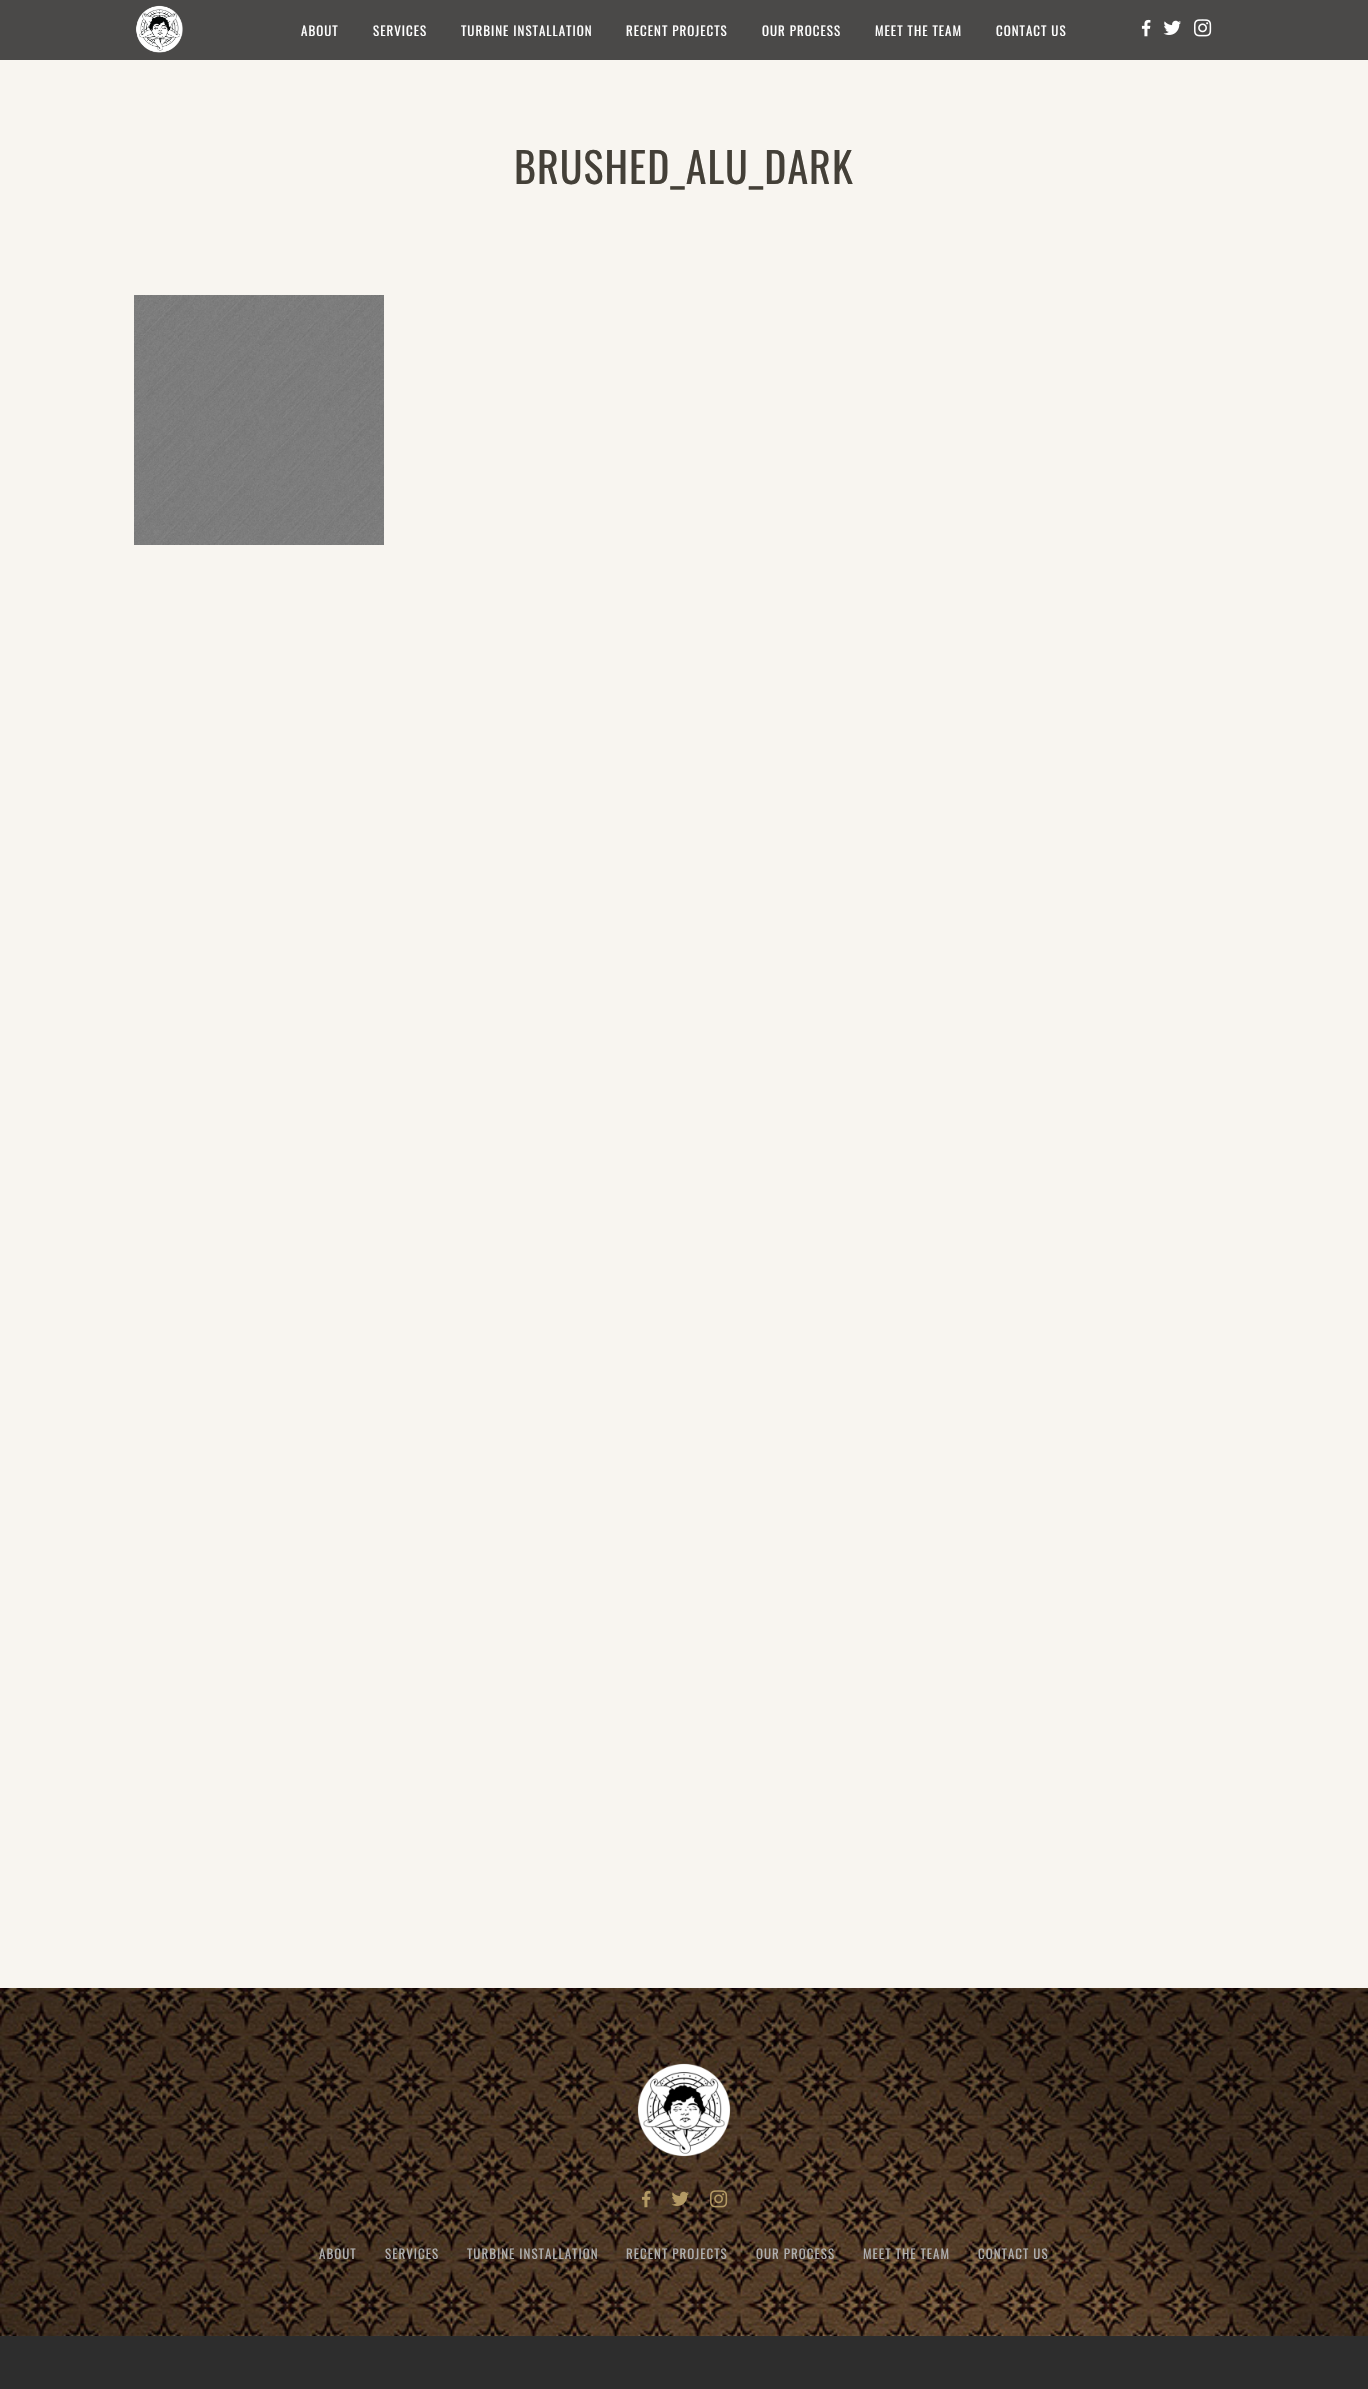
void draw(SkCanvas* c) {
SkPaint p;
p.setAntiAlias(true);
auto F=[&](const char* family, int weight, float size, bool italic = false){SkFontStyle style(weight, SkFontStyle::kNormal_Width,italic ? SkFontStyle::kItalic_Slant : SkFontStyle::kUpright_Slant);SkFont result(fontMgr->matchFamilyStyle(family, style), size);result.setSubpixel(true);return result;};
auto L=[&](const char* s, float x, float y, const SkFont& font, const SkPaint& ink, float letter, float word){std::vector<SkGlyphID> glyphs(font.countText(s, strlen(s), SkTextEncoding::kUTF8));std::vector<float> xs(glyphs.size());font.textToGlyphs(s, strlen(s), SkTextEncoding::kUTF8, glyphs);font.getXPos(glyphs, xs, x);float extra = 0;for (size_t i = 0; i < glyphs.size(); i++) {xs[i] += extra;extra += letter + word * (glyphs[i] == font.unicharToGlyph(' '));}c->drawTextBlob(SkTextBlob::MakeFromPosHGlyphs(glyphs, xs, y, font), 0, 0, ink);};
auto R=[&](float x, float y, float w, float h){c->drawRect(SkRect::MakeXYWH(x, y, w, h), p);};
auto I=[&](const char* path, float x, float y, float w, float h){auto image = SkImages::DeferredFromEncodedData(SkData::MakeFromFileName(path));c->drawImageRect(image, SkRect::MakeXYWH(x, y, w, h), SkSamplingOptions());};
c->clear(0xfff8f5f0);
p.setColor(0xff4a4948);
R(0,0,1368,60);
I("1.png",136,5,47,48);
auto f1 = F("Oswald",400,13);
p.setColor(0xffffffff);
L("ABOUT",301,36,f1,p,1,0);
L("SERVICES",373,36,f1,p,1,0);
L("TURBINE INSTALLATION",461,36,f1,p,1,0);
L("RECENT PROJECTS",626,36,f1,p,1,0);
L("OUR PROCESS",762,36,f1,p,1,0);
L("MEET THE TEAM",875,36,f1,p,1,0);
L("CONTACT US",996,36,f1,p,1,0);
I("2.png",1141,19,10,18);
I("3.png",1163,20,18,15);
I("4.png",1194,19,18,18);
auto f2 = F("Oswald",400,42);
p.setColor(0xff444038);
L("BRUSHED_ALU_DARK",514,184,f2,p,1,0);
I("5.png",134,295,250,250);
I("6.png",0,1988,1368,348);
I("7.png",637,2063,94,94);
I("8.png",641,2190,10,18);
I("9.png",671,2191,18,15);
I("10.png",710,2190,18,18);
p.setColor(0xffafafaf);
L("ABOUT",319,2259,f1,p,1,0);
L("SERVICES",385,2259,f1,p,1,0);
L("TURBINE INSTALLATION",467,2259,f1,p,1,0);
L("RECENT PROJECTS",626,2259,f1,p,1,0);
L("OUR PROCESS",756,2259,f1,p,1,0);
L("MEET THE TEAM",863,2259,f1,p,1,0);
L("CONTACT US",978,2259,f1,p,1,0);
p.setColor(0xff2d2d2d);
R(0,2336,1368,53);
}
